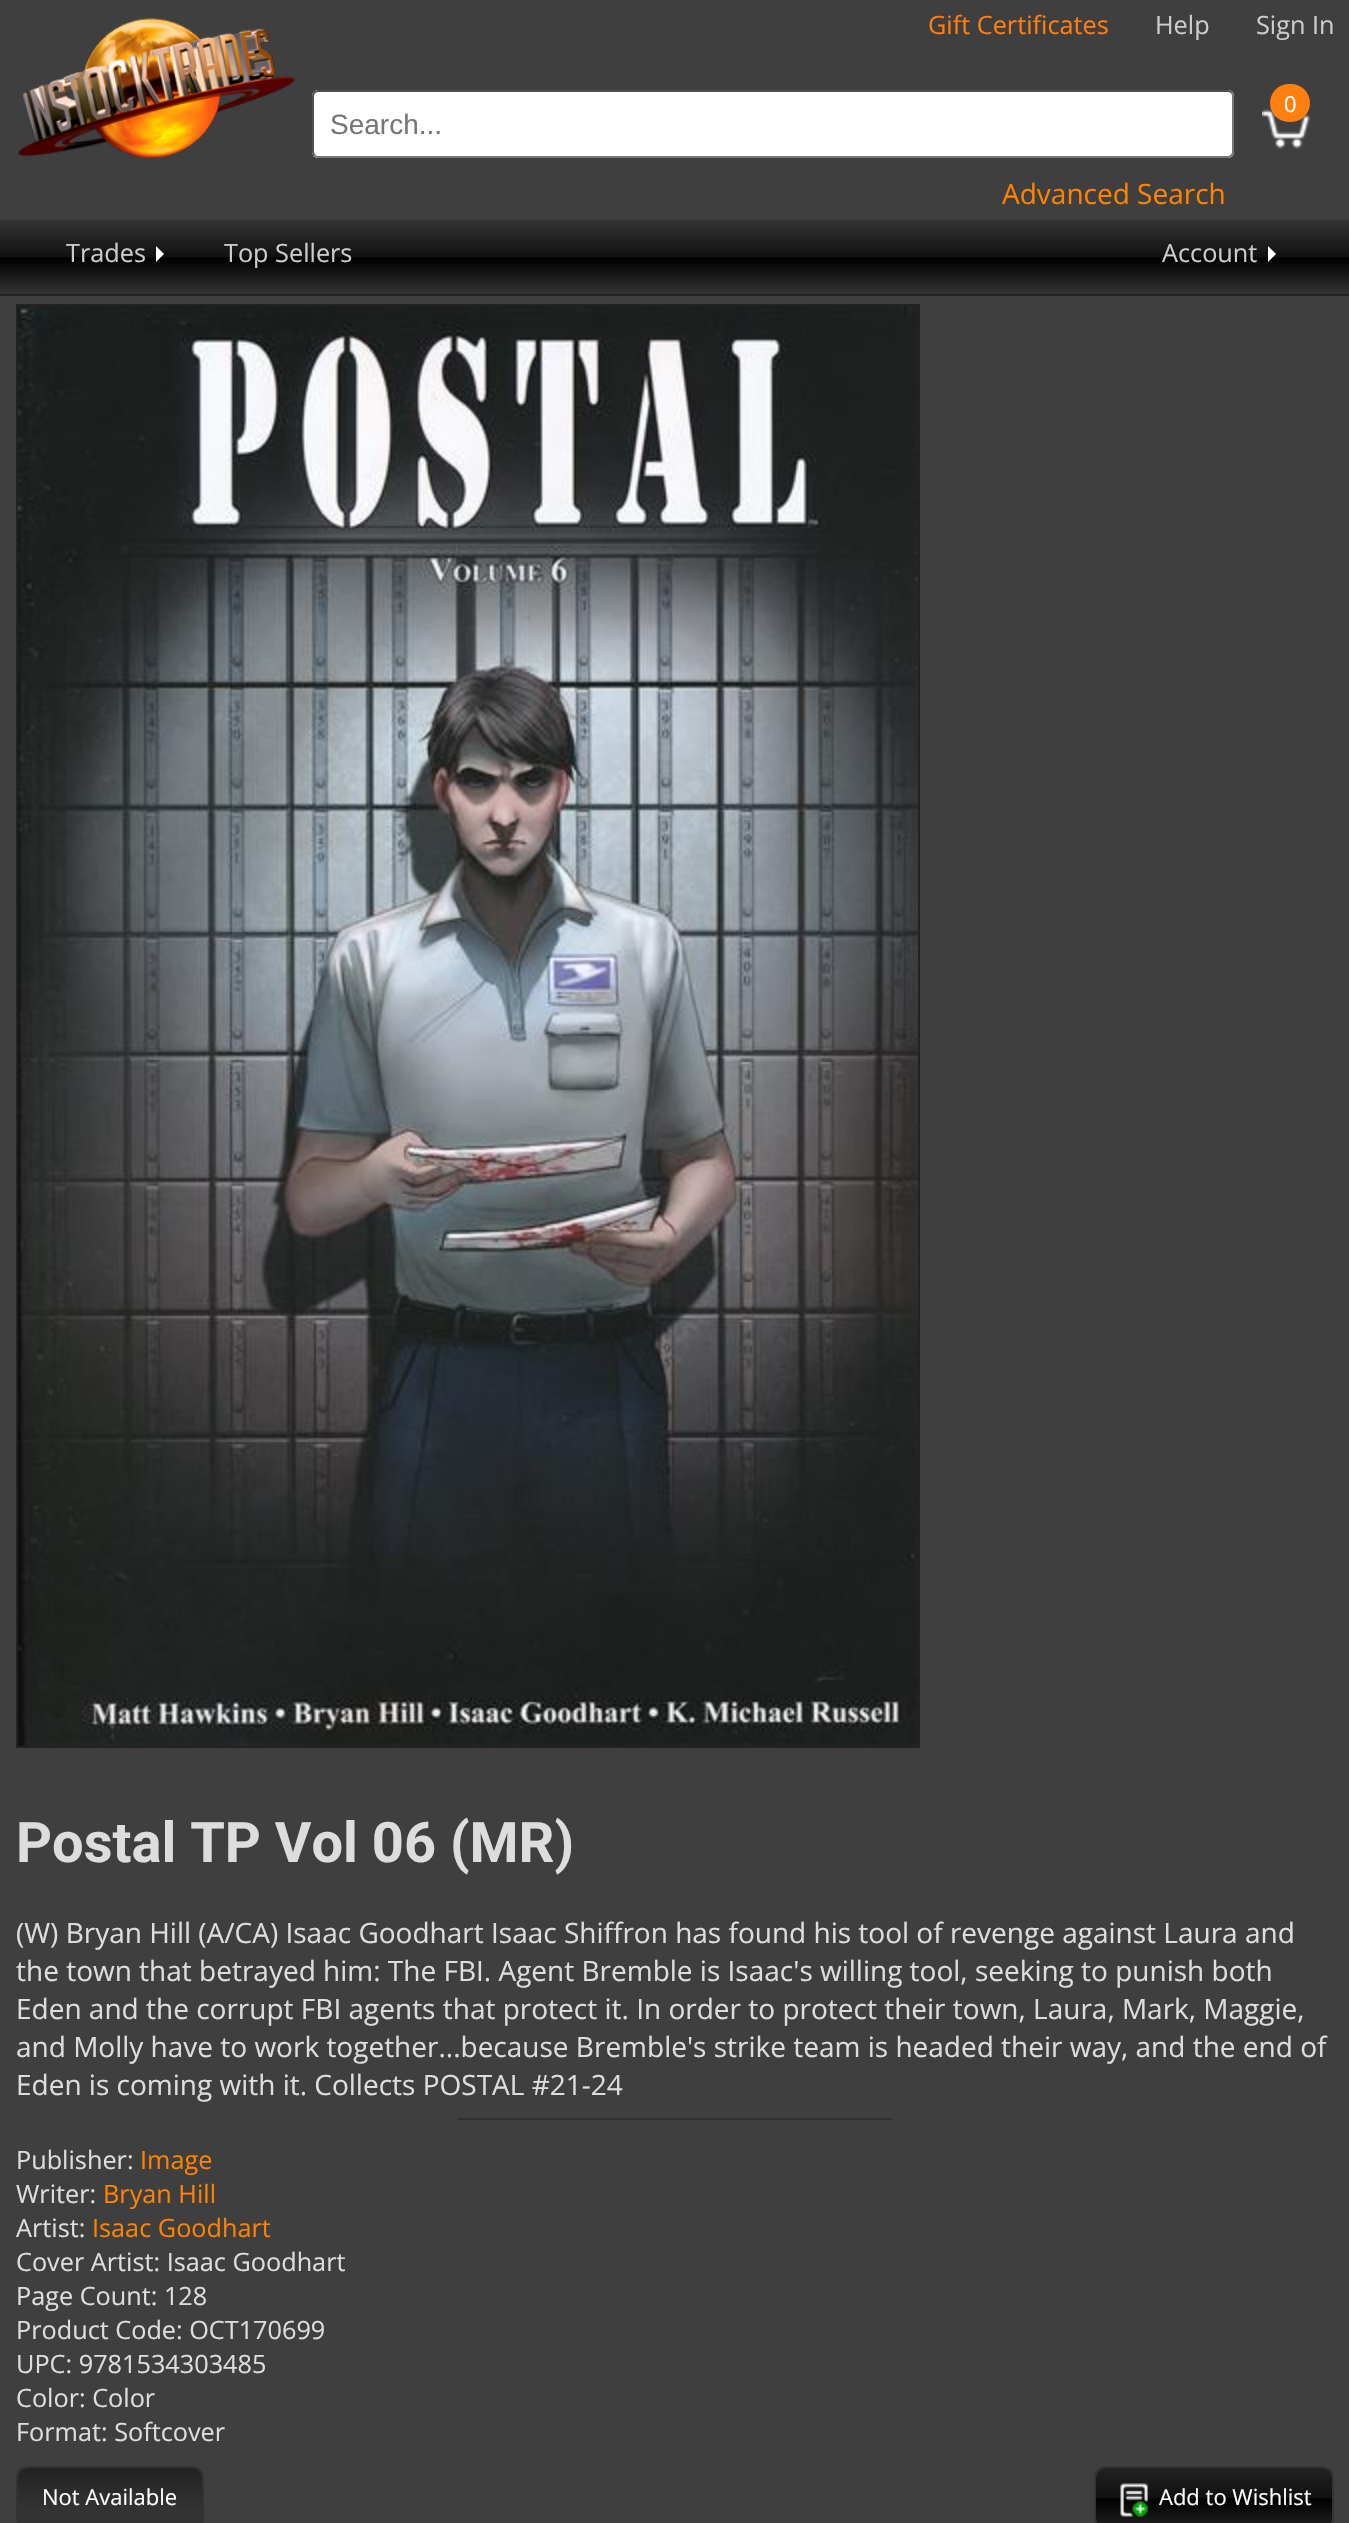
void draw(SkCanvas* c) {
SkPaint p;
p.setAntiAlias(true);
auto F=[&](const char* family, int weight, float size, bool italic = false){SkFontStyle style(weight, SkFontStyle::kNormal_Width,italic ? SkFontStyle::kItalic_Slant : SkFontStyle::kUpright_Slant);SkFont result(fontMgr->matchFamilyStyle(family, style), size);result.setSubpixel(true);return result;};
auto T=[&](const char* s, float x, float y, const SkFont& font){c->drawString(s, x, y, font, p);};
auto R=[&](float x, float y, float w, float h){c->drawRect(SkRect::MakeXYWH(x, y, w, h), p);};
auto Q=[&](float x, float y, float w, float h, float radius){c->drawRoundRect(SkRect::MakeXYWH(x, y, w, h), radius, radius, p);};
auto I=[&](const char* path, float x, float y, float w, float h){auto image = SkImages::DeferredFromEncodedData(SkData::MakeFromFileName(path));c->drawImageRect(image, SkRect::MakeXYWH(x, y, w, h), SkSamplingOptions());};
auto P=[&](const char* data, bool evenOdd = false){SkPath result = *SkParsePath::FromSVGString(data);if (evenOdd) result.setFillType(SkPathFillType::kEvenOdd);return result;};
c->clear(0xff3f3f3f);
I("1.png",18,18,277,140);
auto f1 = F("Open Sans",400,25.25);
p.setColor(0xffff7f10);
T("Gift Certificates",928,34,f1);
p.setColor(0xffcccccc);
T("Help",1155,34,f1);
T("Sign In",1256,34,f1);
I("2.png",1262,109,48,40);
p.setColor(0xffff7f10);
Q(1270,84,40,38,19);
auto f2 = F("Open Sans",400,22);
p.setColor(0xffffffff);
T("0",1284,112,f2);
Q(312,90,922,68,6);
p.setStroke(true);
p.setStrokeWidth(2);
p.setColor(0xff767676);
c->drawPath(P("M1231.5 92.5c1 1 1.5 2 1.5 3.5v56c0 1.5-.5 2.5-1.5 3.5c-1 1-2 1.5-3.5 1.5h-910c-1.5 0-2.5-.5-3.5-1.5"),p);
p.setColor(0xff4f4f4f);
c->drawPath(P("M314.5 155.5c-1-1-1.5-2-1.5-3.5v-56c0-1.5 .5-2.5 1.5-3.5c1-1 2-1.5 3.5-1.5h910c1.5 0 2.5 .5 3.5 1.5"),p);
auto f3 = F("Liberation Sans",400,28);
p.setStroke(false);
p.setColor(0xff757575);
T("Search...",330,134,f3);
auto f4 = F("Open Sans",400,28);
p.setColor(0xfffe8300);
T("Advanced Search",1002,204,f4);
{
const SkColor colors[] = {0xff333333,0xff111111,0xff000000,0xff333333};
const float stops[] = {0,.5,.51,1};
const SkPoint ends[] = {{675,220}, {675,294}};
p.setShader(SkGradientShader::MakeLinear(ends, colors, stops, 4, SkTileMode::kClamp));
p.setAlpha(255);
}
R(0,220,1349,74);
p.setShader(nullptr);
p.setColor(0xff222222);
R(0,294,1349,2);
p.setColor(0xffcccccc);
T("Trades",66,262,f1);
p.setColor(0xffffffff);
c->drawPath(P("M156 262v-16l8 8z"),p);
p.setColor(0xffcccccc);
T("Top Sellers",224,262,f1);
T("Account",1162,262,f1);
p.setColor(0xffffffff);
c->drawPath(P("M1268 262v-16l8 8z"),p);
p.setStroke(true);
p.setColor(0xff222222);
c->drawRect(SkRect::MakeXYWH(17,305,902,1442),p);
I("3.png",18,306,900,1440);
auto f5 = F("Roboto",700,56);
p.setStroke(false);
p.setColor(0xffdddddd);
T("Postal TP Vol 06 (MR)",16,1862,f5);
T("(W) Bryan Hill (A/CA) Isaac Goodhart Isaac Shiffron has found his tool of revenge against Laura and",16,1943,f4);
T("the town that betrayed him: The FBI. Agent Bremble is Isaac's willing tool, seeking to punish both",16,1981,f4);
T("Eden and the corrupt FBI agents that protect it. In order to protect their town, Laura, Mark, Maggie,",16,2019,f4);
T("and Molly have to work together...because Bremble's strike team is headed their way, and the end of",16,2057,f4);
T("Eden is coming with it. Collects POSTAL #21-24",16,2095,f4);
p.setColor(0xff313131);
R(458,2118,434,2);
p.setColor(0xffdddddd);
T("Publisher:",16,2169,f1);
p.setColor(0xfffe8300);
T("Image",140,2169,f1);
p.setColor(0xffdddddd);
T("Writer:",16,2203,f1);
p.setColor(0xfffe8300);
T("Bryan Hill",103,2203,f1);
p.setColor(0xffdddddd);
T("Artist:",16,2237,f1);
p.setColor(0xfffe8300);
T("Isaac Goodhart",92,2237,f1);
p.setColor(0xffdddddd);
T("Cover Artist: Isaac Goodhart",16,2271,f1);
T("Page Count: 128",16,2305,f1);
T("Product Code: OCT170699",16,2339,f1);
T("UPC: 9781534303485",16,2373,f1);
T("Color: Color",16,2407,f1);
T("Format: Softcover",16,2441,f1);
c->save();
c->clipPath(P("M28 2466h164c6.5 0 12 5.5 12 12v40c0 6.5-5.5 12-12 12h-164c-6.5 0-12-5.5-12-12v-40c0-6.5 5.5-12 12-12z"),true);
{
const SkColor colors[] = {0xff222222,0xff333333};
const float stops[] = {0,.7};
const SkPoint ends[] = {{110,2468}, {110,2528}};
p.setShader(SkGradientShader::MakeLinear(ends, colors, stops, 2, SkTileMode::kClamp));
p.setAlpha(255);
}
R(16,2468,188,55);
c->restore();
p.setStroke(true);
p.setShader(nullptr);
p.setColor(0xff333333);
c->drawRoundRect(SkRect::MakeXYWH(17,2467,186,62),11,11,p);
p.setStroke(false);
p.setColor(0xffffffff);
T("Not Available",42,2505,f2);
c->save();
c->clipPath(P("M1106 2466h216c6.5 0 12 5.5 12 12v40c0 6.5-5.5 12-12 12h-216c-6.5 0-12-5.5-12-12v-40c0-6.5 5.5-12 12-12z"),true);
{
const SkColor colors[] = {0xff222222,0xff111111,0xff000000,0xff222222};
const float stops[] = {0,.5,.51,1};
const SkPoint ends[] = {{1214,2468}, {1214,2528}};
p.setShader(SkGradientShader::MakeLinear(ends, colors, stops, 4, SkTileMode::kClamp));
p.setAlpha(255);
}
R(1094,2468,240,55);
c->restore();
p.setStroke(true);
p.setShader(nullptr);
p.setColor(0xff333333);
c->drawRoundRect(SkRect::MakeXYWH(1095,2467,238,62),11,11,p);
I("4.png",1120,2483,29,34);
p.setStroke(false);
p.setColor(0xffffffff);
T("Add to Wishlist",1159,2505,f2);
}
